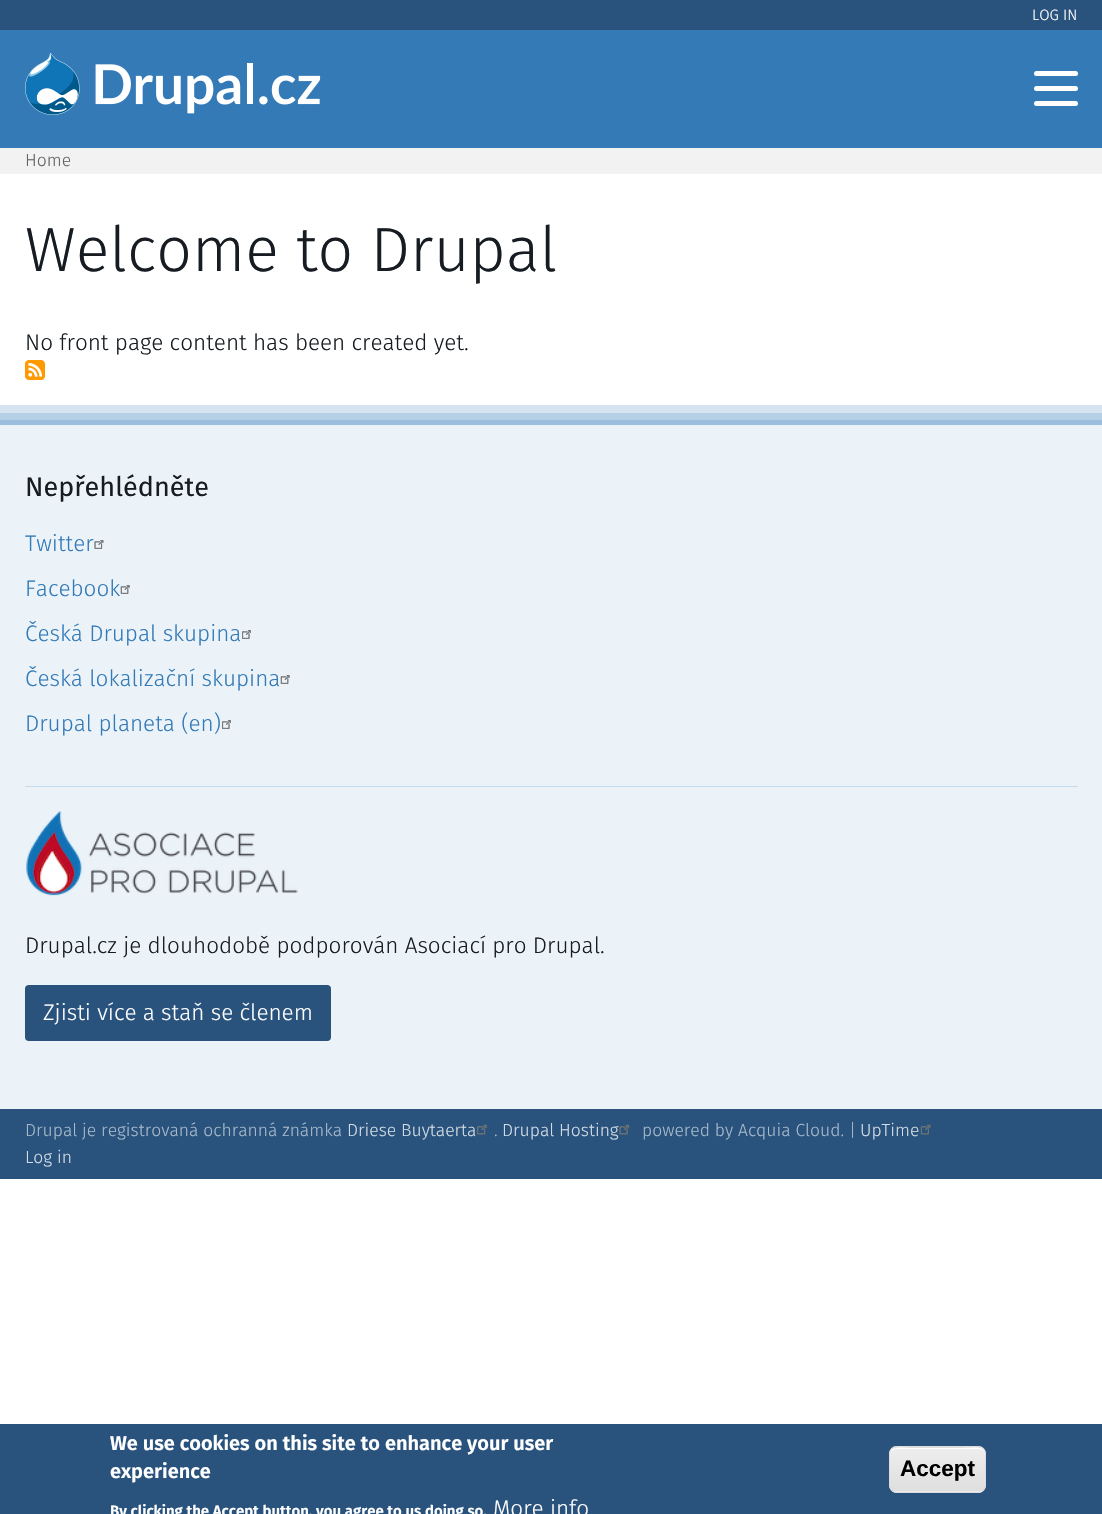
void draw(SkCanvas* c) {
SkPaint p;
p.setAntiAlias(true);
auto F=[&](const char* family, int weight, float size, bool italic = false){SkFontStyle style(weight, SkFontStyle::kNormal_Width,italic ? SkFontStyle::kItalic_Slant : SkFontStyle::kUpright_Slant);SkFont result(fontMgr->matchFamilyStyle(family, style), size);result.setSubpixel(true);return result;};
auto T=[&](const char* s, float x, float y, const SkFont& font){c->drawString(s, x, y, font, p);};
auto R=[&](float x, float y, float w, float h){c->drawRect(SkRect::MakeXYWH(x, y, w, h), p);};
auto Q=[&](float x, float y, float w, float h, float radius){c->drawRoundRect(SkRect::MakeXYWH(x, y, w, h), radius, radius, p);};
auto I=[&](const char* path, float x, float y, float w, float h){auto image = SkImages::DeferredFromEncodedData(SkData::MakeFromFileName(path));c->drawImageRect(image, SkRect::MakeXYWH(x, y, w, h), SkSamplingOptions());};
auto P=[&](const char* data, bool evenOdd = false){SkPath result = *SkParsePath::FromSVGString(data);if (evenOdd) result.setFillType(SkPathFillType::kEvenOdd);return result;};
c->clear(0xffffffff);
p.setColor(0xff29537d);
R(0,0,1102,30);
auto f1 = F("Fira Sans",300,15);
p.setColor(0xffffffff);
T("LOG IN",1032,20,f1);
p.setColor(0xff337ab7);
R(0,30,1102,118);
I("1.png",25,53,296,62);
p.setColor(0xffffffff);
Q(1034,71,44,5,2.5);
Q(1034,86,44,5,2.5);
Q(1034,101,44,5,2.5);
p.setColor(0xfff2f2f2);
R(0,148,1102,26);
auto f2 = F("Fira Sans",300,17.5);
p.setColor(0xff616161);
T("Home",25,166,f2);
auto f3 = F("Fira Sans",300,62.5);
p.setColor(0xff161c21);
T("Welcome to Drupal",25,271,f3);
auto f4 = F("Fira Sans",300,22.5);
T("No front page content has been created yet.",25,350,f4);
I("2.png",25,360,20,20);
p.setColor(0xffd6e4f1);
c->drawPath(P("M0 405v20h1102v664h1v-684z"),p);
p.setColor(0xffb5cfe5);
c->drawPath(P("M0 413v12h1102v671h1v-683z"),p);
p.setColor(0xff9bbedc);
c->drawPath(P("M0 420v5h1102v679h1v-684z"),p);
p.setColor(0xffebf3f9);
R(0,425,1102,684);
p.setColor(0xffc6dbec);
R(25,786,1053,1);
auto f5 = F("Fira Sans",400,27);
p.setColor(0xff161c21);
T("Nepřehlédněte",25,496,f5);
p.setColor(0xff337ab7);
T("Twitter",25,551,f4);
I("3.png",94,540,10,9);
T("Facebook",25,596,f4);
I("4.png",120,585,10,9);
T("Česká Drupal skupina",25,641,f4);
I("5.png",242,630,9,9);
T("Česká lokalizační skupina",25,686,f4);
I("4.png",280,675,10,9);
T("Drupal planeta (en)",25,731,f4);
I("5.png",222,720,9,9);
I("6.png",26,811,272,85);
p.setColor(0xff161c21);
T("Drupal.cz je dlouhodobě podporován Asociací pro Drupal.",25,953,f4);
p.setColor(0xff29537d);
Q(25,985,306,56,4);
p.setColor(0xffffffff);
T("Zjisti více a staň se členem",43,1020,f4);
p.setColor(0xff29537d);
R(0,1109,1102,70);
p.setColor(0xffa9bacb);
T("Drupal je registrovaná ochranná známka",25,1136,f2);
p.setColor(0xffd4dde5);
T("Driese Buytaerta",347,1136,f2);
I("7.png",477,1124,10,11);
T("Drupal Hosting",502,1136,f2);
I("8.png",619,1124,11,11);
p.setColor(0xffa9bacb);
T("powered by Acquia Cloud. |",642,1136,f2);
p.setColor(0xffd4dde5);
T("UpTime",860,1136,f2);
I("9.png",920,1124,11,11);
p.setColor(0xffa9bacb);
T(".",494,1136,f2);
p.setColor(0xffd4dde5);
T("Log in",25,1163,f2);
p.setColor(0xff29537d);
R(0,1424,1102,90);
auto f6 = F("Fira Sans",600,20);
p.setColor(0xffffffff);
T("We use cookies on this site to enhance your user",110,1450,f6);
T("experience",110,1478,f6);
auto f7 = F("Fira Sans",600,15);
T("By clicking the Accept button, you agree to us doing so.",110,1516,f7);
T("More info",493,1516,f4);
c->save();
c->clipPath(P("M897 1446h81c4.5 0 8 3.5 8 8v31c0 4.5-3.5 8-8 8h-81c-4.5 0-8-3.5-8-8v-31c0-4.5 3.5-8 8-8z"),true);
{
const SkColor colors[] = {0xffededed,0xffdfdfdf};
const float stops[] = {.05,1};
const SkPoint ends[] = {{938,1404}, {938,1448}};
p.setShader(SkGradientShader::MakeLinear(ends, colors, stops, 2, SkTileMode::kClamp));
p.setAlpha(255);
}
R(889,1446,97,2);
{
const SkColor colors[] = {0xffededed,0xffdfdfdf};
const float stops[] = {.05,1};
const SkPoint ends[] = {{938,1448}, {938,1491}};
p.setShader(SkGradientShader::MakeLinear(ends, colors, stops, 2, SkTileMode::kClamp));
p.setAlpha(255);
}
R(889,1448,97,43);
{
const SkColor colors[] = {0xffededed,0xffdfdfdf};
const float stops[] = {.05,1};
const SkPoint ends[] = {{938,1491}, {938,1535}};
p.setShader(SkGradientShader::MakeLinear(ends, colors, stops, 2, SkTileMode::kClamp));
p.setAlpha(255);
}
R(889,1491,97,2);
c->restore();
p.setShader(nullptr);
p.setColor(0xffffffff);
c->drawPath(P("M896 1449h83c3 0 6 3 6 6c0-10-13-7-20-7h-55c-7 0-20-3-20 7c0-3 3-6 6-6z"),p);
p.setStroke(true);
p.setStrokeWidth(1);
p.setColor(0xffdcdcdc);
c->drawRoundRect(SkRect::MakeXYWH(889.5,1446.5,96,46),7.5,7.5,p);
auto f8 = F("Liberation Sans",700,22.5);
p.setStroke(false);
p.setColor(0xff000000);
T("Accept",900,1476,f8);
}
